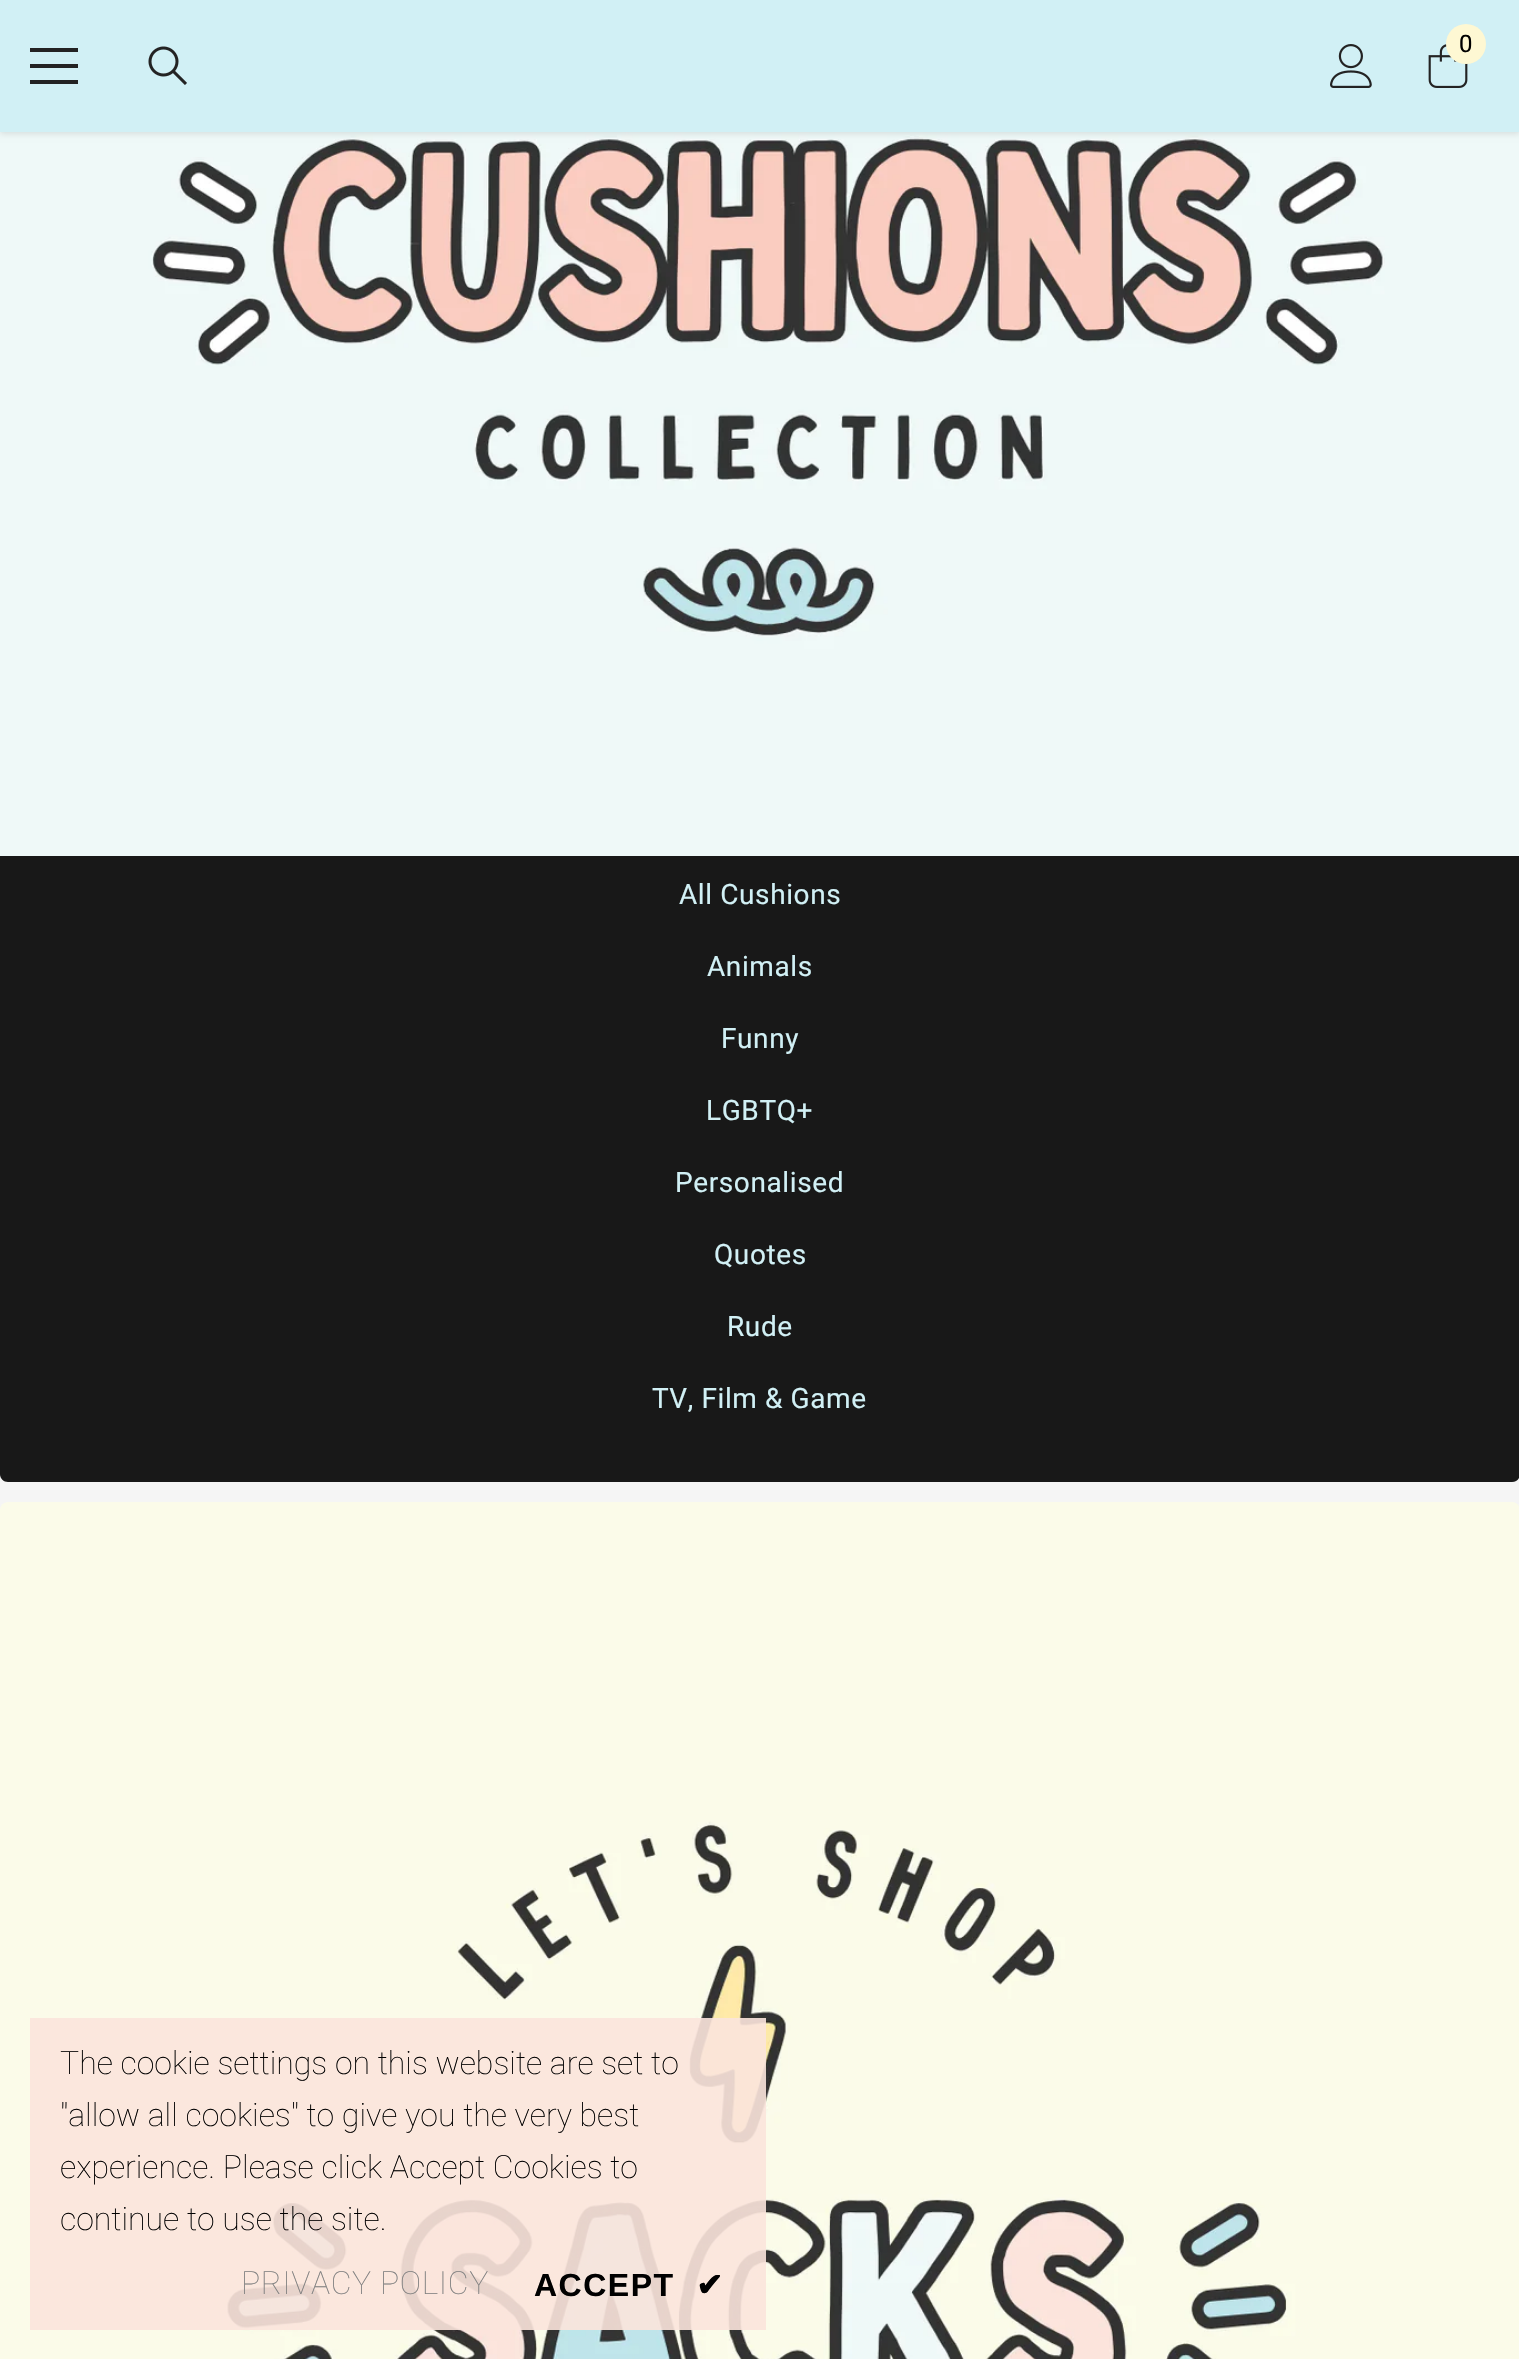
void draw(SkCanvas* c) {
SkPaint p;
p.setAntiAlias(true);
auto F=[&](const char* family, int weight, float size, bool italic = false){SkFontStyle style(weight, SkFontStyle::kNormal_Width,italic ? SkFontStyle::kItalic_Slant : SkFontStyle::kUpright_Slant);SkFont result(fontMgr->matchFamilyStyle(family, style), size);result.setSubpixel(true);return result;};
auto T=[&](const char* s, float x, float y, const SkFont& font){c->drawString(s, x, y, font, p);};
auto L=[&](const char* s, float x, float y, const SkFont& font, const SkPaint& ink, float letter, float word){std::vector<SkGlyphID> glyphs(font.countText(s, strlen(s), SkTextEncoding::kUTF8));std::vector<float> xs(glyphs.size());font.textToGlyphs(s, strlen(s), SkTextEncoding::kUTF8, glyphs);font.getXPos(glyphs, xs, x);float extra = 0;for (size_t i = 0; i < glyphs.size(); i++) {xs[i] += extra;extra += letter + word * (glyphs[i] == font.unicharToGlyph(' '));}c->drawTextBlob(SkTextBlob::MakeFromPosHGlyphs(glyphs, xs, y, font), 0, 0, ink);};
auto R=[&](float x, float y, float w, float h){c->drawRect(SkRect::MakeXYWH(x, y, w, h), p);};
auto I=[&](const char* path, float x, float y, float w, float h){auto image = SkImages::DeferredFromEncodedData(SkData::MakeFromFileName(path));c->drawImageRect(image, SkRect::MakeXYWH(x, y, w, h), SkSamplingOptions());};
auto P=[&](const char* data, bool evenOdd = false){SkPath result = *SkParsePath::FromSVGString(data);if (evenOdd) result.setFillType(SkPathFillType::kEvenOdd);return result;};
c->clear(0xfff5f5f5);
I("4.png",0,132,1519,724);
p.setColor(0x1a000000);
p.setMaskFilter(SkMaskFilter::MakeBlur(kNormal_SkBlurStyle, 3));
c->drawRect(SkRect::MakeXYWH(0,2,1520,132),p);
p.setMaskFilter(nullptr);
p.setColor(0xffd1f0f5);
R(0,0,1519,132);
p.setColor(0xff232323);
R(30,64,48,4);
R(30,48,48,4);
R(30,80,48,4);
I("1.png",148,46,39,39);
I("2.png",1330,44,42,44);
I("3.png",1428,44,40,44);
p.setColor(0xfffef8d3);
c->drawCircle(1466,44,20,p);
auto f1 = F("Roboto",400,24);
p.setColor(0xff000000);
T("0",1459,52,f1);
p.setColor(0xff181818);
c->drawPath(P("M0 856h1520v618c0 4.5-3.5 8-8 8h-1504c-4.5 0-8-3.5-8-8z"),p);
auto f2 = F("Roboto",400,28);
p.setColor(0xffd1f0f5);
L("All Cushions",679,904,f2,p,.6,0);
L("Animals",707,976,f2,p,.6,0);
L("Funny",721,1048,f2,p,.6,0);
L("LGBTQ+",706,1120,f2,p,.6,0);
L("Personalised",675,1192,f2,p,.6,0);
L("Quotes",714,1264,f2,p,.6,0);
L("Rude",727,1336,f2,p,.6,0);
L("TV, Film & Game",652,1408,f2,p,.6,0);
I("5.png",0,1502,1519,857);
p.setColor(0xe6fbe4dc);
R(30,2018,736,312);
auto f3 = F("Roboto",100,32);
p.setColor(0xff000000);
T("The cookie settings on this website are set to",60,2074,f3);
T("\"allow all cookies\" to give you the very best",60,2126,f3);
T("experience. Please click Accept Cookies to",60,2178,f3);
T("continue to use the site.",60,2230,f3);
p.setColor(0xff818181);
L("PRIVACY POLICY",241,2294,f3,p,.6,0);
auto f4 = F("Liberation Sans",700,32);
p.setColor(0xff000000);
L("ACCEPT",534,2296,f4,p,1.5,0);
auto f5 = F("DejaVu Sans",700,32);
L("✔",696,2296,f5,p,1.5,0);
}
